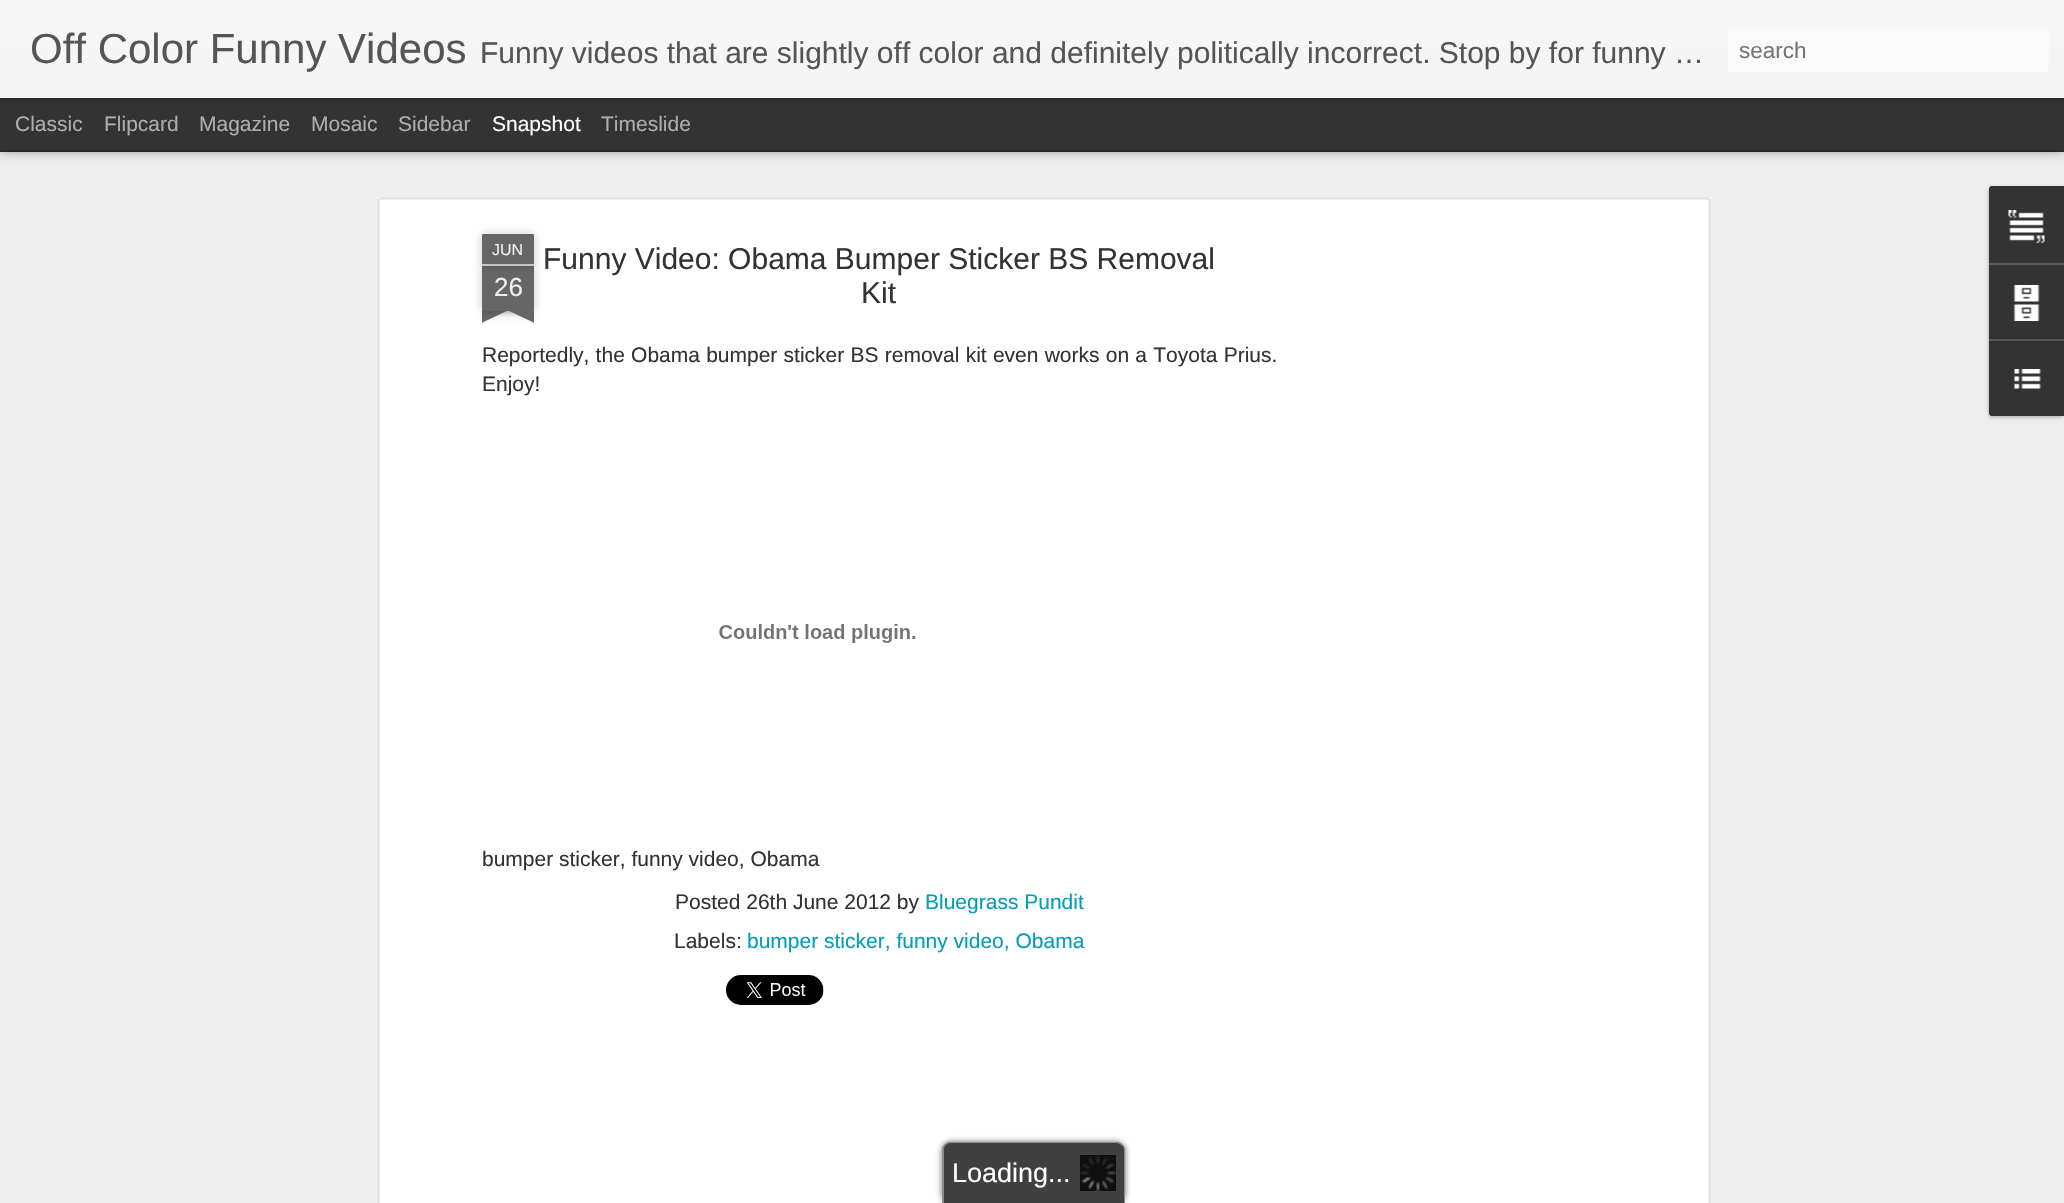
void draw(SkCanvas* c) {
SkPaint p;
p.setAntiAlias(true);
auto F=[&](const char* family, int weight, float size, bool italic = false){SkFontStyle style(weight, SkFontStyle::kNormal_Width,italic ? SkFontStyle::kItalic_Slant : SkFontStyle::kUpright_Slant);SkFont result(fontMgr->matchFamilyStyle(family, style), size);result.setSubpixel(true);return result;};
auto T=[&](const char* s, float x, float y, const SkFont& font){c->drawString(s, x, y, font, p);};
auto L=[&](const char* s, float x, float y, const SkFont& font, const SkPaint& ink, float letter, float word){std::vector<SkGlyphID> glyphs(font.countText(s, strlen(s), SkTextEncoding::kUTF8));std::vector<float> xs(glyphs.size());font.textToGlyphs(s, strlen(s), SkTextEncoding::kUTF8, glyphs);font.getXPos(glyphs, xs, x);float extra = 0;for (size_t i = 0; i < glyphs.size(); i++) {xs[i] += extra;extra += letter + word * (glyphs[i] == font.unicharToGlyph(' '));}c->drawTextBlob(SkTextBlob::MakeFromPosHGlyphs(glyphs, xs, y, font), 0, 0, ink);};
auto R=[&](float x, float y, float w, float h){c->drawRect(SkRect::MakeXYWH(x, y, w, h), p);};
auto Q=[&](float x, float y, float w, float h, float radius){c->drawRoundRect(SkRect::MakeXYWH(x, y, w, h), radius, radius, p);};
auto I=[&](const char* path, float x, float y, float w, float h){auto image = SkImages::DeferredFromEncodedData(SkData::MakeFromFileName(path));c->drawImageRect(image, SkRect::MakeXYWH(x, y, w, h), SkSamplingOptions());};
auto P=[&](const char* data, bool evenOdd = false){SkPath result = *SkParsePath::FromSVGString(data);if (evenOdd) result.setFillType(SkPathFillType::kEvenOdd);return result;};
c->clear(0xff333333);
p.setColor(0xffeeeeee);
R(0,152,2064,1051);
p.setColor(0x80000000);
p.setMaskFilter(SkMaskFilter::MakeBlur(kNormal_SkBlurStyle, 6));
c->drawRect(SkRect::MakeXYWH(0,98,2064,52),p);
p.setMaskFilter(nullptr);
p.setColor(0xff333333);
R(0,98,2064,52);
p.setColor(0x4d000000);
p.setMaskFilter(SkMaskFilter::MakeBlur(kNormal_SkBlurStyle, 4));
c->drawRect(SkRect::MakeXYWH(0,0,2064,98),p);
p.setMaskFilter(nullptr);
{
const SkColor colors[] = {0xfff7f7f7,0xfff4f4f4};
const float stops[] = {0,1};
const SkPoint ends[] = {{0,0}, {0,98}};
p.setShader(SkGradientShader::MakeLinear(ends, colors, stops, 2, SkTileMode::kClamp));
p.setAlpha(255);
}
R(0,0,2064,98);
auto f1 = F("Liberation Sans",400,42);
p.setShader(nullptr);
p.setColor(0xff555555);
T("Off Color Funny Videos",30,63,f1);
auto f2 = F("Liberation Sans",400,30);
T("Funny videos that are slightly off color and definitely politically incorrect. Stop by for funny …",480,63,f2);
p.setColor(0xfffafafa);
Q(1728,27,321,45,5);
auto f3 = F("Liberation Sans",400,22.5);
p.setColor(0xff757575);
T("search",1739,58,f3);
auto f4 = F("Liberation Sans",400,21);
p.setColor(0xffadadad);
T("Classic",15,131,f4);
T("Flipcard",104,131,f4);
T("Magazine",199,131,f4);
T("Mosaic",311,131,f4);
T("Sidebar",398,131,f4);
p.setColor(0xffffffff);
T("Snapshot",492,131,f4);
p.setColor(0xffadadad);
T("Timeslide",601,131,f4);
p.setColor(0xffffffff);
R(377,197,1335,1006);
I("1.png",377,197,1335,1006);
p.setColor(0x33000000);
p.setMaskFilter(SkMaskFilter::MakeBlur(kNormal_SkBlurStyle, 4));
c->drawRect(SkRect::MakeXYWH(482,266,52,45),p);
p.setMaskFilter(nullptr);
p.setColor(0xff666666);
R(482,266,52,45);
p.setColor(0x33000000);
p.setMaskFilter(SkMaskFilter::MakeBlur(kNormal_SkBlurStyle, 4));
c->drawRoundRect(SkRect::MakeXYWH(482,234,52,32),1.5,1.5,p);
p.setMaskFilter(nullptr);
p.setColor(0xff666666);
c->drawPath(P("M483.5 234h49c1 0 1.5 .5 1.5 1.5v30.5h-52v-30.5c0-1 .5-1.5 1.5-1.5z"),p);
p.setColor(0xffc2c2c2);
R(482,264,52,2);
auto f5 = F("Liberation Sans",400,16);
p.setColor(0xffeeeeee);
T("JUN",492,255,f5);
auto f6 = F("Liberation Sans",400,26);
T("26",494,296,f6);
c->save();
c->clipRect(SkRect::MakeXYWH(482,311,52,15));
p.setColor(0x33000000);
p.setMaskFilter(SkMaskFilter::MakeBlur(kNormal_SkBlurStyle, 4));
c->drawRect(SkRect::MakeXYWH(468,296,75,15),p);
p.setMaskFilter(nullptr);
c->restore();
c->save();
c->clipRect(SkRect::MakeXYWH(482,311,52,15));
p.setColor(0xff666666);
c->drawPath(P("M468 312l68-32l7 14l-68 32z"),p);
c->restore();
c->save();
c->clipRect(SkRect::MakeXYWH(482,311,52,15));
p.setColor(0x33000000);
p.setMaskFilter(SkMaskFilter::MakeBlur(kNormal_SkBlurStyle, 4));
c->drawRect(SkRect::MakeXYWH(473,296,75,15),p);
p.setMaskFilter(nullptr);
c->restore();
c->save();
c->clipRect(SkRect::MakeXYWH(482,311,52,15));
p.setColor(0xff666666);
c->drawPath(P("M479 280l68 32l-6 14l-68-32z"),p);
c->restore();
p.setColor(0xff333333);
T("Funny Video: Obama Bumper Sticker BS Removal",543,269,f2);
T("Kit",861,303,f2);
L("Reportedly, the Obama bumper sticker BS removal kit even works on a Toyota Prius.",482,362,f4,p,0,.4);
T("Enjoy!",482,391,f4);
I("2.png",719,624,197,19);
T("bumper sticker, funny video, Obama",482,866,f4);
T("Posted 26th June 2012 by",675,909,f4);
p.setColor(0xff009eb8);
T("Bluegrass Pundit",925,909,f4);
p.setColor(0xff333333);
T("Labels:",674,948,f4);
p.setColor(0xff009eb8);
T("bumper sticker, funny video, Obama",747,948,f4);
I("3.png",726,975,98,30);
p.setColor(0x4d000000);
p.setMaskFilter(SkMaskFilter::MakeBlur(kNormal_SkBlurStyle, 2));
c->drawRoundRect(SkRect::MakeXYWH(1989,188,75,229),3,3,p);
p.setMaskFilter(nullptr);
p.setColor(0xff333333);
c->drawPath(P("M1992 186h72v230h-72c-1.5 0-3-1.5-3-3v-224c0-1.5 1.5-3 3-3z"),p);
c->drawPath(P("M1992 186h72v77h-75v-74c0-1.5 1.5-3 3-3z"),p);
I("4.png",2008,210,37,33);
p.setColor(0xff585858);
R(1989,263,75,2);
I("5.png",2013,285,27,36);
p.setColor(0xff333333);
c->drawPath(P("M1989 339h75v77h-72c-1.5 0-3-1.5-3-3z"),p);
p.setColor(0xff585858);
R(1989,339,75,2);
I("6.png",2014,369,27,20);
p.setColor(0xff666666);
p.setMaskFilter(SkMaskFilter::MakeBlur(kNormal_SkBlurStyle, 3));
c->drawRoundRect(SkRect::MakeXYWH(942,1142,183,61),9,9,p);
p.setMaskFilter(nullptr);
p.setColor(0xff404040);
c->drawPath(P("M951 1142h165c5 0 9 4 9 9v52h-183v-52c0-5 4-9 9-9z"),p);
p.setColor(0xff8c8c8c);
c->drawPath(P("M951 1142h165c5 0 9 4 9 8v53h-183v-53c0-4 4-8 9-8zm0 1h165c4 0 8 3 8 7v53h-180v-53c0-4 3-7 7-7z",true),p);
I("7.png",1080,1155,36,36);
auto f7 = F("Liberation Sans",400,27);
p.setColor(0xffffffff);
T("Loading...",952,1182,f7);
}
